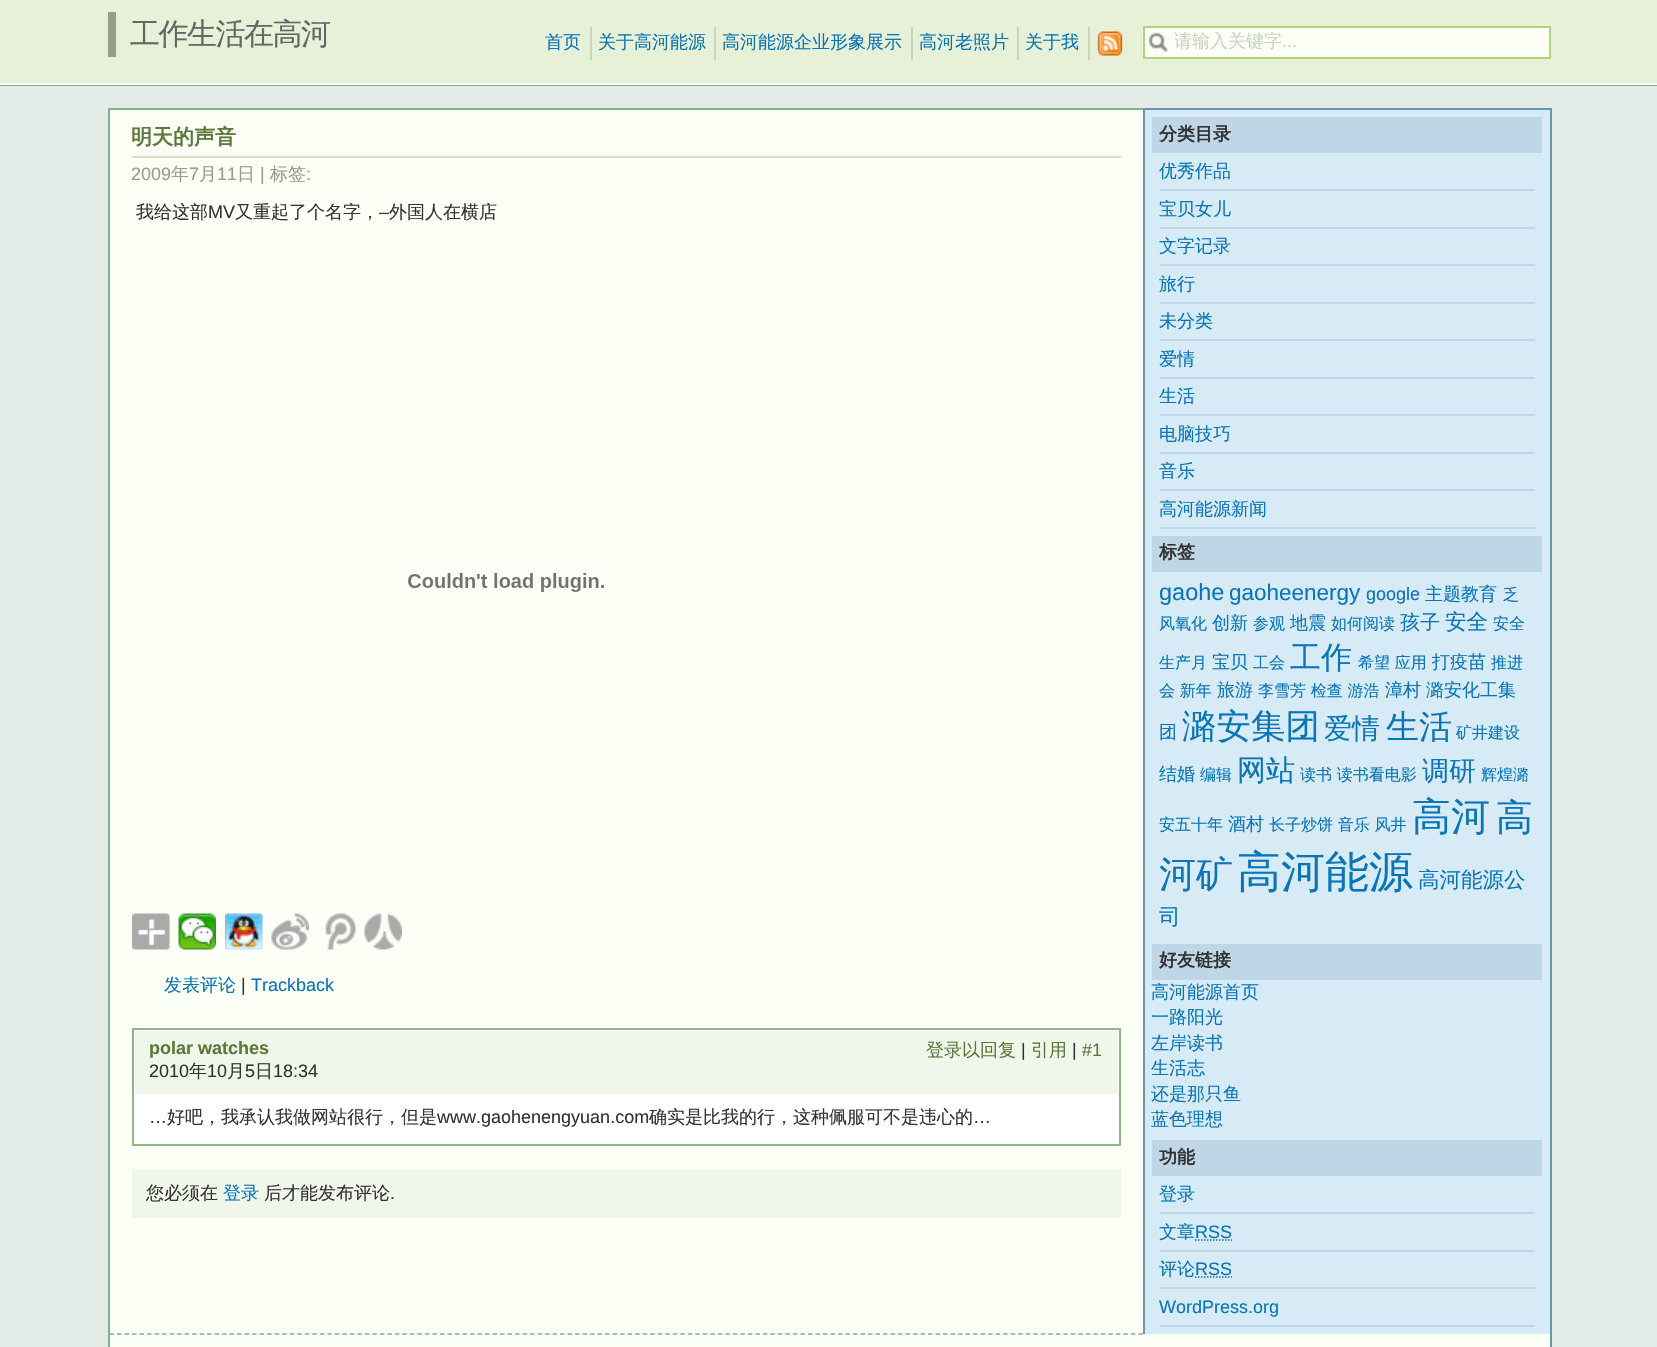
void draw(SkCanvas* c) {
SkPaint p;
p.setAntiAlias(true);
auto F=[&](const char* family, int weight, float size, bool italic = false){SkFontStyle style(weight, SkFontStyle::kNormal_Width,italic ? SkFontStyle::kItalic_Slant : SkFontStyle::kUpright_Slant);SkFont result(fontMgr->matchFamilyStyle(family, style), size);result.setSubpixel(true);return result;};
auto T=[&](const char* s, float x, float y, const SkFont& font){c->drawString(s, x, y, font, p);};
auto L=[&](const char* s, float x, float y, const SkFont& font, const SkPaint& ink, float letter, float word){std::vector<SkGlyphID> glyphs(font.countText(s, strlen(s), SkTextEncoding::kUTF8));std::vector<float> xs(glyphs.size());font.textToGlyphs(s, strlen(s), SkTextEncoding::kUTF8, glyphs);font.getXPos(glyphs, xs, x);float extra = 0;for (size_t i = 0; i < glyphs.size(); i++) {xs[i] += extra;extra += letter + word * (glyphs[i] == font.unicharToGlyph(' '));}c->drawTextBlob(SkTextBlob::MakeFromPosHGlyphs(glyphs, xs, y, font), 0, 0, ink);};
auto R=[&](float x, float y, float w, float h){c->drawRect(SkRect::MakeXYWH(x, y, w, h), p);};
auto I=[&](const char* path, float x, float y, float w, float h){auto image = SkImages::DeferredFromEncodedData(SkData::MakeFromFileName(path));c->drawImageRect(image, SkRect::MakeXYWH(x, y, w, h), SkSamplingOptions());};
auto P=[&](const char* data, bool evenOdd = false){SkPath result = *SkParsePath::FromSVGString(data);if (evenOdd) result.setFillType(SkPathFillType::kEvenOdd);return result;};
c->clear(0xff84b092);
p.setColor(0xffe7f1d7);
R(0,0,1657,83);
p.setColor(0xfff6fff0);
R(0,83,1657,2);
p.setColor(0xff959e87);
R(108,12,8,45);
auto f1 = F("WenQuanYi Zen Hei",500,30);
p.setColor(0xff666666);
L("工作生活在高河",130,44,f1,p,-1.5,0);
p.setColor(0xffc6d6be);
R(590,27,2,33);
auto f2 = F("WenQuanYi Zen Hei",500,18);
p.setColor(0xff0b75b6);
T("首页",545,48,f2);
p.setColor(0xffc6d6be);
R(714,27,2,33);
p.setColor(0xff0b75b6);
T("关于高河能源",598,48,f2);
p.setColor(0xffc6d6be);
R(911,27,2,33);
p.setColor(0xff0b75b6);
T("高河能源企业形象展示",722,48,f2);
p.setColor(0xffc6d6be);
R(1017,27,2,33);
p.setColor(0xff0b75b6);
T("高河老照片",919,48,f2);
p.setColor(0xffc6d6be);
R(1088,27,2,33);
p.setColor(0xff0b75b6);
T("关于我",1025,48,f2);
I("1.png",1097,31,26,25);
p.setColor(0xfffcfff6);
R(1145,28,404,29);
I("2.png",1148,32,21,21);
p.setStroke(true);
p.setStrokeWidth(2);
p.setColor(0xffb2d281);
c->drawRect(SkRect::MakeXYWH(1144,27,406,31),p);
c->save();
c->clipRect(SkRect::MakeXYWH(1175,30,370,26));
p.setStroke(false);
p.setColor(0xffccd3c5);
T("请输入关键字",1174,47,f2);
c->restore();
auto f3 = F("Liberation Sans",400,18);
T("...",1282,47,f3);
p.setColor(0xffe3ece6);
R(0,86,1657,1261);
p.setColor(0xfffcfff6);
R(110,110,1440,1237);
p.setColor(0xff84b092);
R(108,108,1035,2);
p.setColor(0xff6996ac);
R(1550,108,2,1239);
p.setColor(0xff84b092);
R(108,108,2,1239);
p.setColor(0xffd7e0c7);
R(132,156,989,2);
auto f4 = F("WenQuanYi Zen Hei",700,21);
p.setColor(0xff5c793c);
T("明天的声音",131,144,f4);
p.setColor(0xff959e87);
T("2009",131,180,f3);
T("年",171,180,f2);
T("7",189,180,f3);
T("月",199,180,f2);
T("11",217,180,f3);
T("日",237,180,f2);
T("|",260,180,f3);
T("标签",270,180,f2);
T(":",306,180,f3);
p.setColor(0xff333333);
T("我给这部",136,218,f2);
T("MV",208,218,f3);
T("又重起了个名字，",235,218,f2);
T("–",379,218,f3);
T("外国人在横店",389,218,f2);
I("3.png",408,573,196,19);
I("4.png",132,913,38,37);
I("5.png",178,913,38,37);
I("6.png",225,913,38,37);
I("7.png",271,913,38,37);
I("8.png",325,913,31,37);
I("9.png",364,913,38,37);
p.setColor(0xff0b75b6);
T("发表评论",164,991,f2);
p.setColor(0xff333333);
T("|",241,991,f3);
p.setColor(0xff0b75b6);
T("Trackback",251,991,f3);
p.setColor(0xffffffff);
c->drawRect(SkRect::MakeXYWH(133,1029,987,116),p);
p.setStroke(true);
p.setColor(0xff90b683);
c->drawRect(SkRect::MakeXYWH(133,1029,987,116),p);
p.setStroke(false);
p.setColor(0xfff0f6e9);
R(135,1031,983,63);
auto f5 = F("Liberation Sans",700,18);
p.setColor(0xff5c793c);
T("polar watches",149,1054,f5);
p.setColor(0xff333333);
T("2010",149,1077,f3);
T("年",189,1077,f2);
T("10",207,1077,f3);
T("月",227,1077,f2);
T("5",245,1077,f3);
T("日",255,1077,f2);
T("18:34",273,1077,f3);
p.setColor(0xff5c793c);
T("登录以回复",926,1056,f2);
p.setColor(0xff333333);
T("|",1021,1056,f3);
p.setColor(0xff5c793c);
T("引用",1031,1056,f2);
p.setColor(0xff333333);
T("|",1072,1056,f3);
p.setColor(0xff5c793c);
T("#1",1082,1056,f3);
p.setColor(0xff333333);
T("…",149,1123,f3);
T("好吧，我承认我做网站很行，但是",167,1123,f2);
T("www.gaohenengyuan.com",437,1123,f3);
T("确实是比我的行，这种佩服可不是违心的",649,1123,f2);
T("…",973,1123,f3);
p.setColor(0xfff0f6e9);
R(132,1169,989,49);
p.setColor(0xff333333);
T("您必须在",146,1199,f2);
p.setColor(0xff0b75b6);
T("登录",223,1199,f2);
p.setColor(0xff333333);
T("后才能发布评论",264,1199,f2);
T(".",390,1199,f3);
p.setColor(0xffd6ebf5);
R(1145,110,405,1224);
p.setColor(0xff6996ac);
R(1143,108,407,2);
R(1143,108,2,1226);
p.setColor(0xffbed6e5);
R(1152,117,390,36);
auto f6 = F("WenQuanYi Zen Hei",700,18);
p.setColor(0xff333333);
T("分类目录",1159,140,f6);
p.setColor(0xffbed6e5);
R(1160,189,375,2);
p.setColor(0xff0b75b6);
T("优秀作品",1159,177,f2);
p.setColor(0xffbed6e5);
R(1160,227,375,2);
p.setColor(0xff0b75b6);
T("宝贝女儿",1159,215,f2);
p.setColor(0xffbed6e5);
R(1160,264,375,2);
p.setColor(0xff0b75b6);
T("文字记录",1159,252,f2);
p.setColor(0xffbed6e5);
R(1160,302,375,2);
p.setColor(0xff0b75b6);
T("旅行",1159,290,f2);
p.setColor(0xffbed6e5);
R(1160,339,375,2);
p.setColor(0xff0b75b6);
T("未分类",1159,327,f2);
p.setColor(0xffbed6e5);
R(1160,377,375,2);
p.setColor(0xff0b75b6);
T("爱情",1159,365,f2);
p.setColor(0xffbed6e5);
R(1160,414,375,2);
p.setColor(0xff0b75b6);
T("生活",1159,402,f2);
p.setColor(0xffbed6e5);
R(1160,452,375,2);
p.setColor(0xff0b75b6);
T("电脑技巧",1159,440,f2);
p.setColor(0xffbed6e5);
R(1160,489,375,2);
p.setColor(0xff0b75b6);
T("音乐",1159,477,f2);
p.setColor(0xffbed6e5);
R(1160,527,375,2);
p.setColor(0xff0b75b6);
T("高河能源新闻",1159,515,f2);
p.setColor(0xffbed6e5);
R(1152,536,390,36);
p.setColor(0xff333333);
T("标签",1159,558,f6);
auto f7 = F("Liberation Sans",400,23.5);
p.setColor(0xff0b75b6);
T("gaohe",1159,600,f7);
auto f8 = F("Liberation Sans",400,22.5);
T("gaoheenergy",1229,600,f8);
T("google",1366,600,f3);
T("主题教育",1425,600,f2);
auto f9 = F("WenQuanYi Zen Hei",500,16);
T("乏",1503,600,f9);
T("风氧化",1159,629,f9);
T("创新",1212,629,f2);
T("参观",1253,629,f9);
T("地震",1290,629,f2);
T("如何阅读",1331,629,f9);
auto f10 = F("WenQuanYi Zen Hei",500,20);
T("孩子",1400,629,f10);
auto f11 = F("WenQuanYi Zen Hei",500,21.5);
T("安全",1445,629,f11);
T("安全",1493,629,f9);
T("生产月",1159,668,f9);
T("宝贝",1212,668,f2);
T("工会",1253,668,f9);
auto f12 = F("WenQuanYi Zen Hei",500,31);
T("工作",1290,668,f12);
T("希望 应用",1358,668,f9);
T("打疫苗",1432,668,f2);
T("推进",1491,668,f9);
T("会 新年",1159,696,f9);
T("旅游",1217,696,f2);
T("李雪芳 检查 游浩",1258,696,f9);
T("漳村",1385,696,f2);
T("潞安化工集",1426,696,f2);
T("团",1159,738,f2);
auto f13 = F("WenQuanYi Zen Hei",500,34.5);
T("潞安集团",1182,738,f13);
auto f14 = F("WenQuanYi Zen Hei",500,28);
T("爱情",1324,738,f14);
auto f15 = F("WenQuanYi Zen Hei",500,33);
T("生活",1386,738,f15);
T("矿井建设",1456,738,f9);
T("结婚",1159,780,f2);
T("编辑",1200,780,f9);
auto f16 = F("WenQuanYi Zen Hei",500,29);
T("网站",1237,780,f16);
T("读书 读书看电影",1300,780,f9);
auto f17 = F("WenQuanYi Zen Hei",500,27);
T("调研",1422,780,f17);
T("辉煌潞",1481,780,f9);
T("安五十年",1159,830,f9);
T("酒村",1228,830,f2);
T("长子炒饼 音乐 风井",1269,830,f9);
auto f18 = F("WenQuanYi Zen Hei",500,39);
T("高河",1412,830,f18);
auto f19 = F("WenQuanYi Zen Hei",500,37);
T("高",1496,830,f19);
T("河矿",1159,887,f19);
auto f20 = F("WenQuanYi Zen Hei",500,44);
T("高河能源",1237,887,f20);
T("高河能源公",1418,887,f11);
T("司",1159,924,f11);
p.setColor(0xffbed6e5);
R(1152,944,390,36);
p.setColor(0xff333333);
T("好友链接",1159,966,f6);
p.setColor(0xff0b75b6);
T("高河能源首页",1151,998,f2);
T("一路阳光",1151,1023,f2);
T("左岸读书",1151,1049,f2);
T("生活志",1151,1074,f2);
T("还是那只鱼",1151,1100,f2);
T("蓝色理想",1151,1125,f2);
p.setColor(0xffbed6e5);
R(1152,1140,390,36);
p.setColor(0xff333333);
T("功能",1159,1163,f6);
p.setColor(0xffbed6e5);
R(1160,1212,375,2);
p.setColor(0xff0b75b6);
T("登录",1159,1200,f2);
p.setColor(0xffbed6e5);
R(1160,1250,375,2);
p.setColor(0xff0b75b6);
T("文章",1159,1238,f2);
T("RSS",1195,1238,f3);
p.setStroke(true);
p.setStrokeWidth(1.5);
p.setPathEffect(SkDashPathEffect::Make({{1.5f,1.5f}}, 0));
c->drawPath(P("M1195 1240h37"),p);
p.setPathEffect(nullptr);
p.setStroke(false);
p.setColor(0xffbed6e5);
R(1160,1287,375,2);
p.setColor(0xff0b75b6);
T("评论",1159,1275,f2);
p.setStroke(true);
p.setPathEffect(SkDashPathEffect::Make({{1.5f,1.5f}}, 0));
c->drawPath(P("M1195 1277h37"),p);
p.setPathEffect(nullptr);
p.setStroke(false);
T("RSS",1195,1275,f3);
p.setColor(0xffbed6e5);
R(1160,1325,375,2);
p.setColor(0xff0b75b6);
T("WordPress.org",1159,1313,f3);
p.setStroke(true);
p.setColor(0xff84b092);
p.setPathEffect(SkDashPathEffect::Make({{4.5f,3.01f}}, 0));
c->drawPath(P("M109.5 1334h1033.5"),p);
p.setPathEffect(nullptr);
}
